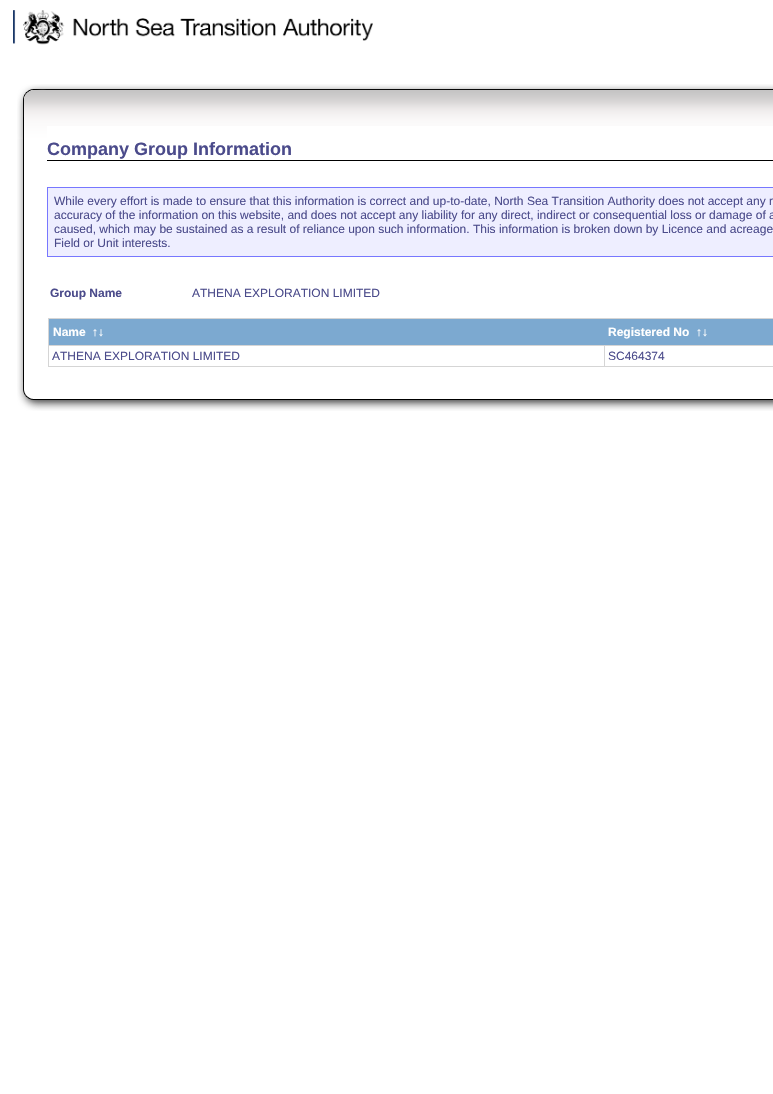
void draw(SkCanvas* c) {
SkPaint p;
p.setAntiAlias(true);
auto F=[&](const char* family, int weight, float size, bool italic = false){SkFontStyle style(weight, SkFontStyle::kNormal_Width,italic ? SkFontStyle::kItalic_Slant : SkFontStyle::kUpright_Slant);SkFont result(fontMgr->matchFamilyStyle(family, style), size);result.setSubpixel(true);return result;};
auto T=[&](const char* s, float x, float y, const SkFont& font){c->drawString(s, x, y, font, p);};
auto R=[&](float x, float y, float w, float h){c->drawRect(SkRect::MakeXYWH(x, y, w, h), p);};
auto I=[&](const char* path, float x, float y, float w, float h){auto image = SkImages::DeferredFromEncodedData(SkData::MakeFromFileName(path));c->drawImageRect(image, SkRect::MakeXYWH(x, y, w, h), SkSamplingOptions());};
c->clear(0xffffffff);
I("1.png",13,10,360,35);
I("2.png",17,84,30,55);
I("3.png",47,84,726,42);
I("4.png",17,139,7,243);
p.setColor(0xff000000);
R(47,160,726,1);
auto f1 = F("Liberation Sans",700,18);
p.setColor(0xff4b4b8b);
T("Company Group Information",47,155,f1);
p.setColor(0xffeeeeff);
c->drawRect(SkRect::MakeXYWH(47.5,187.5,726,69),p);
p.setStroke(true);
p.setStrokeWidth(1);
p.setColor(0xff7777ff);
c->drawRect(SkRect::MakeXYWH(47.5,187.5,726,69),p);
auto f2 = F("Liberation Sans",400,12);
p.setStroke(false);
p.setColor(0xff4b4b8b);
T("While every effort is made to ensure that this information is correct and up-to-date, North Sea Transition Authority does not accept any r",54,205,f2);
T("accuracy of the information on this website, and does not accept any liability for any direct, indirect or consequential loss or damage of a",54,219,f2);
T("caused, which may be sustained as a result of reliance upon such information. This information is broken down by Licence and acreage",54,233,f2);
T("Field or Unit interests.",54,247,f2);
auto f3 = F("Liberation Sans",700,12);
T("Group Name",50,297,f3);
T("ATHENA EXPLORATION LIMITED",192,297,f2);
p.setColor(0xffd5d5d5);
R(48,318,725,1);
R(48,366,725,1);
R(48,318,1,49);
p.setColor(0xff7ca9d0);
R(49,319,724,26);
p.setColor(0xffffffff);
T("Name",53,336,f3);
T("↑↓",92,336,f3);
T("Registered No",608,336,f3);
T("↑↓",696,336,f3);
p.setColor(0xffd5d5d5);
R(48,345,725,1);
p.setColor(0xff4b4b8b);
T("ATHENA EXPLORATION LIMITED",52,360,f2);
p.setColor(0xffd5d5d5);
R(604,345,1,22);
p.setColor(0xff4b4b8b);
T("SC464374",608,360,f2);
I("5.png",17,382,30,29);
I("6.png",47,399,726,12);
}
